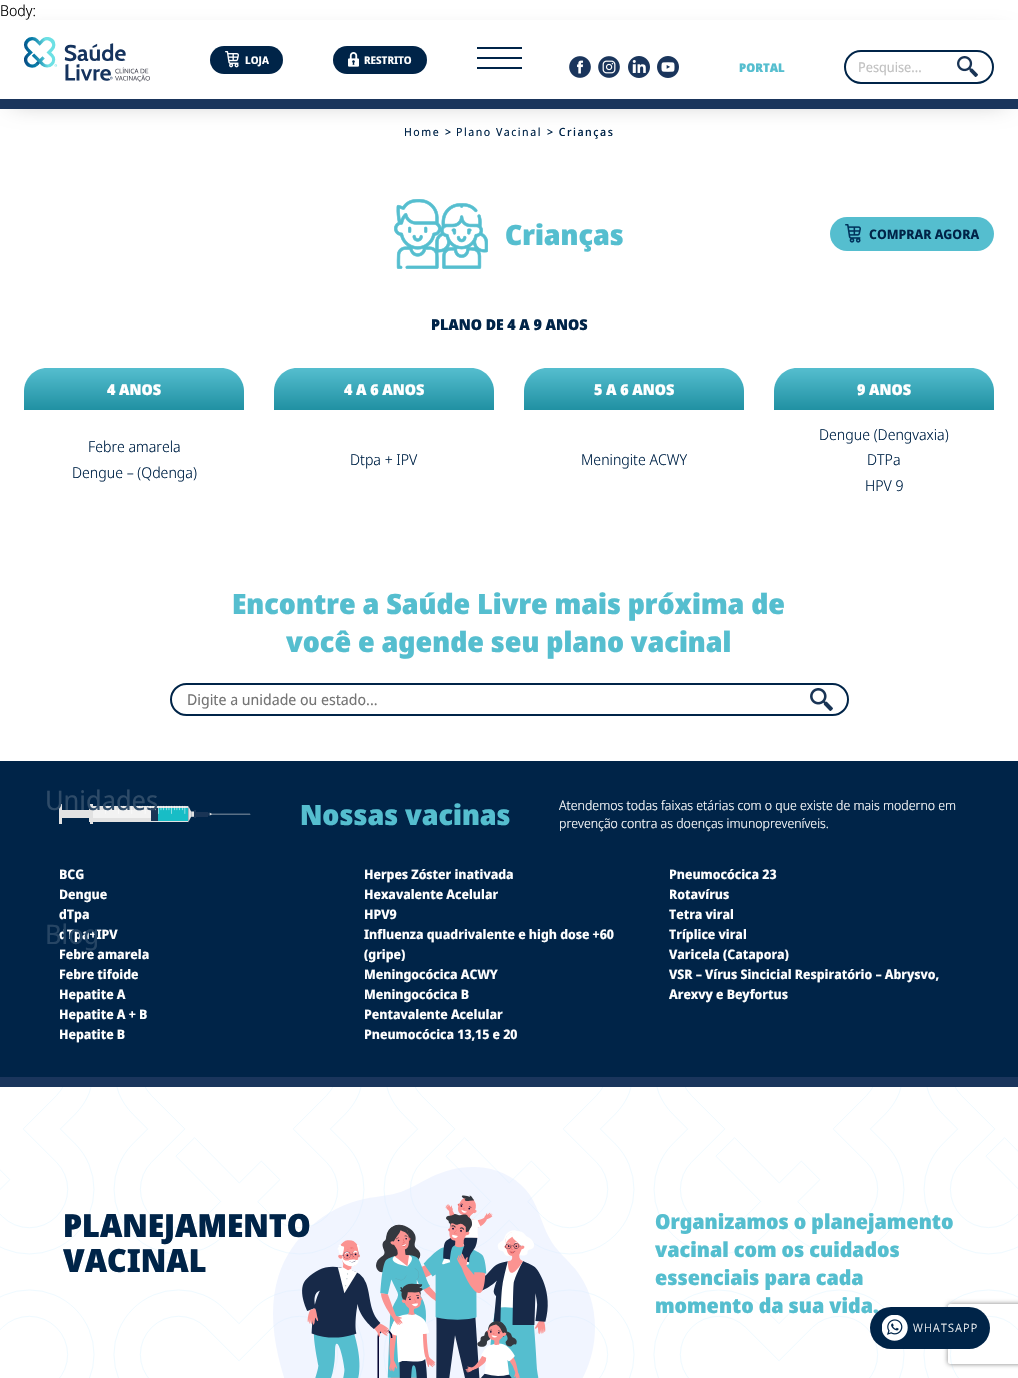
void draw(SkCanvas* c) {
SkPaint p;
p.setAntiAlias(true);
auto F=[&](const char* family, int weight, float size, bool italic = false){SkFontStyle style(weight, SkFontStyle::kNormal_Width,italic ? SkFontStyle::kItalic_Slant : SkFontStyle::kUpright_Slant);SkFont result(fontMgr->matchFamilyStyle(family, style), size);result.setSubpixel(true);return result;};
auto T=[&](const char* s, float x, float y, const SkFont& font){c->drawString(s, x, y, font, p);};
auto L=[&](const char* s, float x, float y, const SkFont& font, const SkPaint& ink, float letter, float word){std::vector<SkGlyphID> glyphs(font.countText(s, strlen(s), SkTextEncoding::kUTF8));std::vector<float> xs(glyphs.size());font.textToGlyphs(s, strlen(s), SkTextEncoding::kUTF8, glyphs);font.getXPos(glyphs, xs, x);float extra = 0;for (size_t i = 0; i < glyphs.size(); i++) {xs[i] += extra;extra += letter + word * (glyphs[i] == font.unicharToGlyph(' '));}c->drawTextBlob(SkTextBlob::MakeFromPosHGlyphs(glyphs, xs, y, font), 0, 0, ink);};
auto R=[&](float x, float y, float w, float h){c->drawRect(SkRect::MakeXYWH(x, y, w, h), p);};
auto Q=[&](float x, float y, float w, float h, float radius){c->drawRoundRect(SkRect::MakeXYWH(x, y, w, h), radius, radius, p);};
auto I=[&](const char* path, float x, float y, float w, float h){auto image = SkImages::DeferredFromEncodedData(SkData::MakeFromFileName(path));c->drawImageRect(image, SkRect::MakeXYWH(x, y, w, h), SkSamplingOptions());};
auto P=[&](const char* data, bool evenOdd = false){SkPath result = *SkParsePath::FromSVGString(data);if (evenOdd) result.setFillType(SkPathFillType::kEvenOdd);return result;};
c->clear(0xffffffff);
c->save();
c->clipPath(P("M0 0h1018v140h-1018zm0 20h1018v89h-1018z",true),true);
p.setColor(0x4d000000);
p.setMaskFilter(SkMaskFilter::MakeBlur(kNormal_SkBlurStyle, 12.5));
c->drawRect(SkRect::MakeXYWH(13,38,992,63),p);
p.setMaskFilter(nullptr);
c->restore();
auto f1 = F("Noto Sans Display",300,15);
p.setColor(0xff000000);
T("Body:",0,16,f1);
p.setColor(0xff1a355c);
R(0,99,1018,10);
I("1.png",24,37,126,45);
p.setColor(0xff002448);
Q(210,46,73,28,14);
I("2.png",225,51,14,17);
auto f2 = F("Noto Sans Display",700,10.5);
p.setColor(0xffffffff);
T("LOJA",245,64,f2);
p.setColor(0xff002448);
Q(333,46,94,28,14);
I("3.png",348,52,11,15);
p.setColor(0xffffffff);
T("RESTRITO",364,64,f2);
p.setColor(0xff002448);
R(477,47,45,2);
R(477,57,45,2);
R(477,67,45,2);
I("4.png",569,56,22,22);
I("5.png",598,56,22,22);
I("6.png",628,56,22,22);
I("7.png",657,56,22,22);
auto f3 = F("Noto Sans Display",900,12);
p.setColor(0xff55becf);
T("PORTAL",739,72,f3);
p.setStroke(true);
p.setStrokeWidth(2);
p.setColor(0xff002448);
c->drawRoundRect(SkRect::MakeXYWH(845,51,148,32),16,16,p);
auto f4 = F("Noto Sans Display",400,13.5);
p.setStroke(false);
p.setColor(0xffc1c1c1);
T("Pesquise...",858,72,f4);
I("8.png",957,56,21,21);
p.setColor(0xff002448);
R(0,761,1018,316);
I("12.png",59,804,192,20);
auto f5 = F("Noto Sans Display",400,27);
p.setColor(0xff2e4b68);
T("Unidades",45,810,f5);
auto f6 = F("Noto Sans Display",700,13.1);
p.setColor(0xffffffff);
T("dTpa+IPV",59,939,f6);
p.setColor(0xff264564);
T("Blog",45,944,f5);
auto f7 = F("Noto Sans Display",400,11.25);
p.setColor(0xff002448);
L("Home",404,136,f7,p,1.5,0);
auto f8 = F("Noto Sans Display",500,11.25);
L(">",445,136,f8,p,1.5,0);
L("Plano Vacinal",456,136,f7,p,1.5,0);
L("> Crianças",547,136,f8,p,1.5,0);
I("9.png",394,199,94,70);
auto f9 = F("Noto Sans Display",900,28.1);
p.setColor(0xff55becf);
T("Crianças",505,245,f9);
Q(830,217,164,34,17);
I("10.png",845,224,16,19);
p.setColor(0xff002448);
T("COMPRAR AGORA",869,239,f6);
auto f10 = F("Noto Sans Display",900,15);
T("PLANO DE 4 A 9 ANOS",431,330,f10);
{
const SkColor colors[] = {0xff55becf,0xff2090a2};
const float stops[] = {0,1};
const SkPoint ends[] = {{134,368}, {134,410}};
p.setShader(SkGradientShader::MakeLinear(ends, colors, stops, 2, SkTileMode::kClamp));
p.setAlpha(255);
}
c->drawPath(P("M47 368h174c12.5 0 23 10.5 23 23v19h-220v-19c0-12.5 10.5-23 23-23z"),p);
p.setShader(nullptr);
p.setColor(0xffffffff);
T("4 ANOS",107,395,f10);
p.setColor(0xff002448);
T("Febre amarela",88,452,f1);
T("Dengue – (Qdenga)",72,478,f1);
{
const SkColor colors[] = {0xff55becf,0xff2090a2};
const float stops[] = {0,1};
const SkPoint ends[] = {{384,368}, {384,410}};
p.setShader(SkGradientShader::MakeLinear(ends, colors, stops, 2, SkTileMode::kClamp));
p.setAlpha(255);
}
c->drawPath(P("M297 368h174c12.5 0 23 10.5 23 23v19h-220v-19c0-12.5 10.5-23 23-23z"),p);
p.setShader(nullptr);
p.setColor(0xffffffff);
T("4 A 6 ANOS",344,395,f10);
p.setColor(0xff002448);
T("Dtpa + IPV",350,465,f1);
{
const SkColor colors[] = {0xff55becf,0xff2090a2};
const float stops[] = {0,1};
const SkPoint ends[] = {{634,368}, {634,410}};
p.setShader(SkGradientShader::MakeLinear(ends, colors, stops, 2, SkTileMode::kClamp));
p.setAlpha(255);
}
c->drawPath(P("M547 368h174c12.5 0 23 10.5 23 23v19h-220v-19c0-12.5 10.5-23 23-23z"),p);
p.setShader(nullptr);
p.setColor(0xffffffff);
T("5 A 6 ANOS",594,395,f10);
p.setColor(0xff002448);
T("Meningite ACWY",581,465,f1);
{
const SkColor colors[] = {0xff55becf,0xff2090a2};
const float stops[] = {0,1};
const SkPoint ends[] = {{884,368}, {884,410}};
p.setShader(SkGradientShader::MakeLinear(ends, colors, stops, 2, SkTileMode::kClamp));
p.setAlpha(255);
}
c->drawPath(P("M797 368h174c12.5 0 23 10.5 23 23v19h-220v-19c0-12.5 10.5-23 23-23z"),p);
p.setShader(nullptr);
p.setColor(0xffffffff);
T("9 ANOS",857,395,f10);
p.setColor(0xff002448);
T("Dengue (Dengvaxia)",819,440,f1);
T("DTPa",867,465,f1);
T("HPV 9",865,491,f1);
p.setColor(0xff55becf);
T("Encontre a Saúde Livre mais próxima de",232,614,f9);
T("você e agende seu plano vacinal",286,652,f9);
I("11.png",810,688,23,23);
p.setStroke(true);
p.setColor(0xff002448);
c->drawRoundRect(SkRect::MakeXYWH(171,684,677,31),15.5,15.5,p);
auto f11 = F("Noto Sans Display",400,15);
p.setStroke(false);
p.setColor(0xff757575);
T("Digite a unidade ou estado...",187,705,f11);
p.setColor(0xff55becf);
T("Nossas vacinas",300,825,f9);
auto f12 = F("Noto Sans Display",300,13.1);
p.setColor(0xffffffff);
T("Atendemos todas faixas etárias com o que existe de mais moderno em",559,810,f12);
T("prevenção contra as doenças imunopreveníveis.",559,828,f12);
T("BCG",59,879,f6);
T("Herpes Zóster inativada",364,879,f6);
T("Pneumocócica 23",669,879,f6);
T("Dengue",59,899,f6);
T("Hexavalente Acelular",364,899,f6);
T("Rotavírus",669,899,f6);
T("dTpa",59,919,f6);
T("HPV9",364,919,f6);
T("Tetra viral",669,919,f6);
T("Influenza quadrivalente e high dose +60",364,939,f6);
T("(gripe)",364,959,f6);
T("Tríplice viral",669,939,f6);
T("Febre amarela",59,959,f6);
T("Varicela (Catapora)",669,959,f6);
T("Febre tifoide",59,979,f6);
T("Meningocócica ACWY",364,979,f6);
T("VSR – Vírus Sincicial Respiratório – Abrysvo,",669,979,f6);
T("Arexvy e Beyfortus",669,999,f6);
T("Hepatite A",59,999,f6);
T("Meningocócica B",364,999,f6);
T("Hepatite A + B",59,1019,f6);
T("Pentavalente Acelular",364,1019,f6);
T("Hepatite B",59,1039,f6);
T("Pneumocócica 13,15 e 20",364,1039,f6);
I("13.png",0,1087,1018,291);
p.setColor(0xff1a355c);
R(0,1077,1018,10);
I("14.png",273,1167,322,211);
auto f13 = F("Noto Sans Display",900,32);
p.setColor(0xff002448);
T("PLANEJAMENTO",63,1237,f13);
T("VACINAL",63,1272,f13);
auto f14 = F("Noto Sans Display",900,20.6);
p.setColor(0xff55becf);
T("Organizamos o planejamento",655,1229,f14);
T("vacinal com os cuidados",655,1257,f14);
T("essenciais para cada",655,1285,f14);
T("momento da sua vida.",655,1313,f14);
c->save();
c->clipPath(P("M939 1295h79v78h-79zm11 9h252c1 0 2 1 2 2v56c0 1-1 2-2 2h-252c-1 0-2-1-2-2v-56c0-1 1-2 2-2z",true),true);
p.setColor(0xff808080);
p.setMaskFilter(SkMaskFilter::MakeBlur(kNormal_SkBlurStyle, 2.5));
c->drawRoundRect(SkRect::MakeXYWH(948,1304,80,60),2,2,p);
p.setMaskFilter(nullptr);
c->restore();
p.setColor(0x33ffffff);
p.setMaskFilter(SkMaskFilter::MakeBlur(kNormal_SkBlurStyle, 7));
c->drawRoundRect(SkRect::MakeXYWH(870,1307,120,42),21,21,p);
p.setMaskFilter(nullptr);
p.setColor(0xff002448);
Q(870,1307,120,42,21);
I("15.png",882,1315,26,26);
auto f15 = F("Noto Sans Display",300,11.5);
p.setColor(0xffffffff);
L("WHATSAPP",913,1332,f15,p,1.25,0);
}
